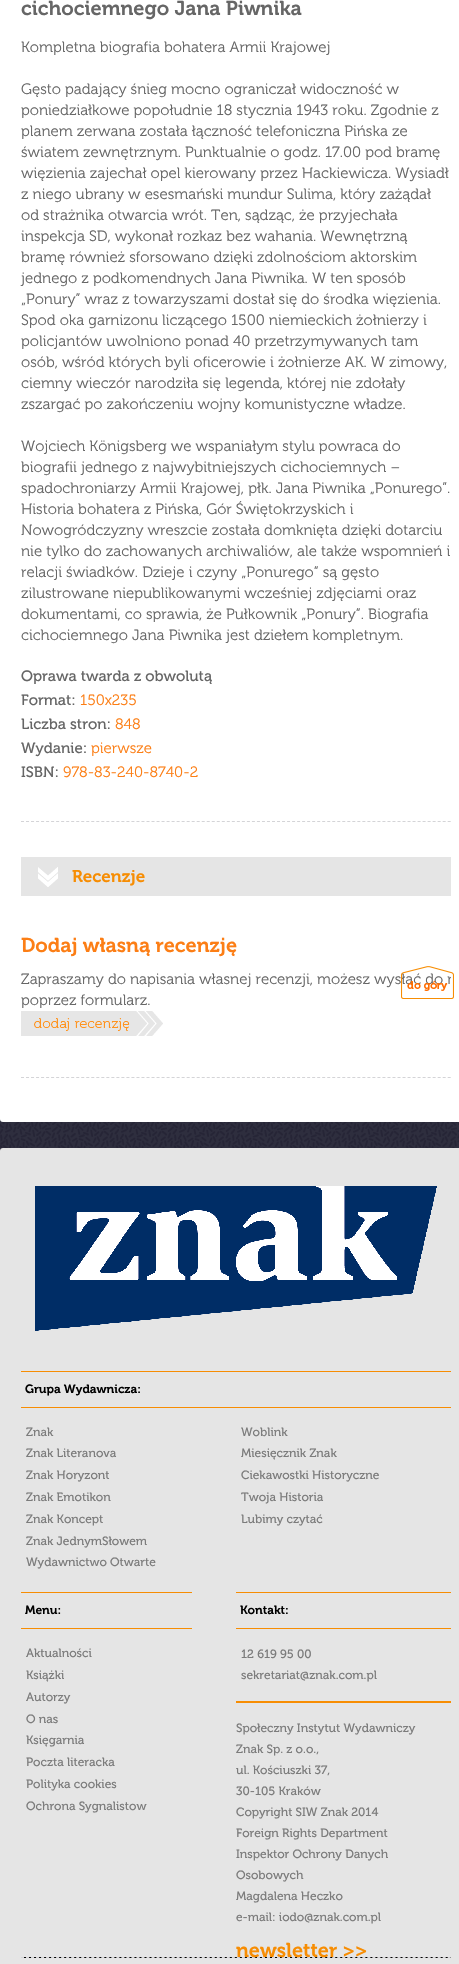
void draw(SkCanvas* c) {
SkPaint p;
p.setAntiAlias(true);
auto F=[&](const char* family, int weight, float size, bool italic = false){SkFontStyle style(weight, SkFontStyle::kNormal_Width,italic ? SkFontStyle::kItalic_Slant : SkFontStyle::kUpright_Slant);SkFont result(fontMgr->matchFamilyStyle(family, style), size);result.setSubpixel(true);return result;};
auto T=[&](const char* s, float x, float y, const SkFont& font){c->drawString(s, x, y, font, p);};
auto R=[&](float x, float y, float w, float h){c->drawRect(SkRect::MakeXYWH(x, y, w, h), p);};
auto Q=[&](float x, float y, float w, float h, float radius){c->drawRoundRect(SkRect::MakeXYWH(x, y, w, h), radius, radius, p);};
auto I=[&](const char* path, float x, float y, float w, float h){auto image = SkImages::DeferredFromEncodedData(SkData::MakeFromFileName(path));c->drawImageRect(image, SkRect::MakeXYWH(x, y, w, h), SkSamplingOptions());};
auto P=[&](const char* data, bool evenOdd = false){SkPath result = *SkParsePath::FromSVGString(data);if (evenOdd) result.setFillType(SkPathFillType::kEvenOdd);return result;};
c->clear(0xffffffff);
I("1.png",0,1119,459,32);
p.setColor(0xffffffff);
Q(0,-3,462,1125,3);
p.setStroke(true);
p.setStrokeWidth(1);
p.setColor(0xffd4d4d7);
p.setPathEffect(SkDashPathEffect::Make({{3,2.02f}}, 0));
c->drawPath(P("M21 821.5h430"),p);
p.setPathEffect(nullptr);
auto f1 = F("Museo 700",600,20);
p.setStroke(false);
p.setColor(0xff666666);
T("cichociemnego Jana Piwnika",21,15,f1);
auto f2 = F("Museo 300",300,15);
T("Kompletna biografia bohatera Armii Krajowej",21,52,f2);
T("Gęsto padający śnieg mocno ograniczał widoczność w",21,94,f2);
T("poniedziałkowe popołudnie 18 stycznia 1943 roku. Zgodnie z",21,115,f2);
T("planem zerwana została łączność telefoniczna Pińska ze",21,136,f2);
T("światem zewnętrznym. Punktualnie o godz. 17.00 pod bramę",21,157,f2);
T("więzienia zajechał opel kierowany przez Hackiewicza. Wysiadł",21,178,f2);
T("z niego ubrany w esesmański mundur Sulima, który zażądał",21,199,f2);
T("od strażnika otwarcia wrót. Ten, sądząc, że przyjechała",21,220,f2);
T("inspekcja SD, wykonał rozkaz bez wahania. Wewnętrzną",21,241,f2);
T("bramę również sforsowano dzięki zdolnościom aktorskim",21,262,f2);
T("jednego z podkomendnych Jana Piwnika. W ten sposób",21,283,f2);
T("„Ponury” wraz z towarzyszami dostał się do środka więzienia.",21,304,f2);
T("Spod oka garnizonu liczącego 1500 niemieckich żołnierzy i",21,325,f2);
T("policjantów uwolniono ponad 40 przetrzymywanych tam",21,346,f2);
T("osób, wśród których byli oficerowie i żołnierze AK. W zimowy,",21,367,f2);
T("ciemny wieczór narodziła się legenda, której nie zdołały",21,388,f2);
T("zszargać po zakończeniu wojny komunistyczne władze.",21,409,f2);
T("Wojciech Königsberg we wspaniałym stylu powraca do",21,451,f2);
T("biografii jednego z najwybitniejszych cichociemnych –",21,472,f2);
T("spadochroniarzy Armii Krajowej, płk. Jana Piwnika „Ponurego”.",21,493,f2);
T("Historia bohatera z Pińska, Gór Świętokrzyskich i",21,514,f2);
T("Nowogródczyzny wreszcie została domknięta dzięki dotarciu",21,535,f2);
T("nie tylko do zachowanych archiwaliów, ale także wspomnień i",21,556,f2);
T("relacji świadków. Dzieje i czyny „Ponurego” są gęsto",21,577,f2);
T("zilustrowane niepublikowanymi wcześniej zdjęciami oraz",21,598,f2);
T("dokumentami, co sprawia, że Pułkownik „Ponury”. Biografia",21,619,f2);
T("cichociemnego Jana Piwnika jest dziełem kompletnym.",21,640,f2);
auto f3 = F("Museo",400,15);
T("Oprawa twarda z obwolutą",21,681,f3);
T("Format:",21,705,f3);
p.setColor(0xfffc7e15);
T("150x235",80,705,f2);
p.setColor(0xff666666);
T("Liczba stron:",21,729,f3);
p.setColor(0xfffc7e15);
T("848",115,729,f2);
p.setColor(0xff666666);
T("Wydanie:",21,753,f3);
p.setColor(0xfffc7e15);
T("pierwsze",91,753,f2);
p.setColor(0xff666666);
T("ISBN:",21,777,f3);
p.setColor(0xfffc7e15);
T("978-83-240-8740-2",63,777,f2);
p.setColor(0xffe5e5e5);
R(21,857,430,39);
I("2.png",38,867,20,20);
auto f4 = F("Museo 700",600,17);
p.setColor(0xfff78d03);
T("Recenzje",72,882,f4);
p.setStroke(true);
p.setColor(0xffd4d4d7);
p.setPathEffect(SkDashPathEffect::Make({{3,2.02f}}, 0));
c->drawPath(P("M21 1077.5h430"),p);
p.setPathEffect(nullptr);
p.setStroke(false);
p.setColor(0xfffc7e15);
T("Dodaj własną recenzję",21,952,f1);
p.setColor(0xff666666);
T("Zapraszamy do",21,984,f2);
c->save();
c->clipRect(SkRect::MakeXYWH(21,931,430,146));
T("napisania własnej recenzji, możesz wysłać do n",130,984,f2);
c->restore();
T("poprzez formularz.",21,1005,f2);
I("3.png",21,1011,142,25);
I("4.png",401,966,53,33);
p.setColor(0xffe5e5e5);
Q(0,1148,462,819,3);
I("5.png",35,1186,402,145);
p.setColor(0xfff78d03);
R(21,1371,430,1);
R(21,1407,430,1);
auto f5 = F("Museo 700",600,12);
p.setColor(0xff000000);
T("Grupa Wydawnicza:",25,1393,f5);
auto f6 = F("Museo",400,12);
p.setColor(0xff7c7c7c);
T("Znak",26,1436,f6);
T("Znak Literanova",26,1457,f6);
T("Znak Horyzont",26,1479,f6);
T("Znak Emotikon",26,1501,f6);
T("Znak Koncept",26,1523,f6);
T("Znak JednymSłowem",26,1545,f6);
T("Wydawnictwo Otwarte",26,1566,f6);
T("Woblink",241,1436,f6);
T("Miesięcznik Znak",241,1457,f6);
T("Ciekawostki Historyczne",241,1479,f6);
T("Twoja Historia",241,1501,f6);
T("Lubimy czytać",241,1523,f6);
p.setColor(0xfff78d03);
R(21,1592,171,1);
R(21,1628,171,1);
p.setColor(0xff000000);
T("Menu:",25,1614,f5);
p.setColor(0xff7c7c7c);
T("Aktualności",26,1657,f6);
T("Książki",26,1679,f6);
T("Autorzy",26,1701,f6);
T("O nas",26,1723,f6);
T("Księgarnia",26,1744,f6);
T("Poczta literacka",26,1766,f6);
T("Polityka cookies",26,1788,f6);
T("Ochrona Sygnalistow",26,1810,f6);
p.setColor(0xfff78d03);
R(236,1592,215,1);
R(236,1628,215,1);
p.setColor(0xff000000);
T("Kontakt:",240,1614,f5);
p.setColor(0xff7c7c7c);
T("12 619 95 00",241,1658,f6);
T("sekretariat@znak.com.pl",241,1679,f6);
p.setColor(0xfff78d03);
R(236,1701,215,2);
p.setColor(0xff7c7c7c);
T("Społeczny Instytut Wydawniczy",236,1732,f6);
T("Znak Sp. z o.o.,",236,1753,f6);
T("ul. Kościuszki 37,",236,1774,f6);
T("30-105 Kraków",236,1795,f6);
T("Copyright SIW Znak 2014",236,1816,f6);
T("Foreign Rights Department",236,1837,f6);
T("Inspektor Ochrony Danych",236,1858,f6);
T("Osobowych",236,1879,f6);
T("Magdalena Heczko",236,1900,f6);
T("e-mail: iodo@znak.com.pl",236,1921,f6);
p.setColor(0xff000000);
R(21,1957,430,1);
p.setStroke(true);
p.setColor(0xffd4d4d7);
p.setPathEffect(SkDashPathEffect::Make({{3,2.02f}}, 0));
c->drawPath(P("M21 1957.5h430"),p);
p.setPathEffect(nullptr);
p.setStroke(false);
p.setColor(0xfff78d03);
T("newsletter >>",236,1957,f1);
}
